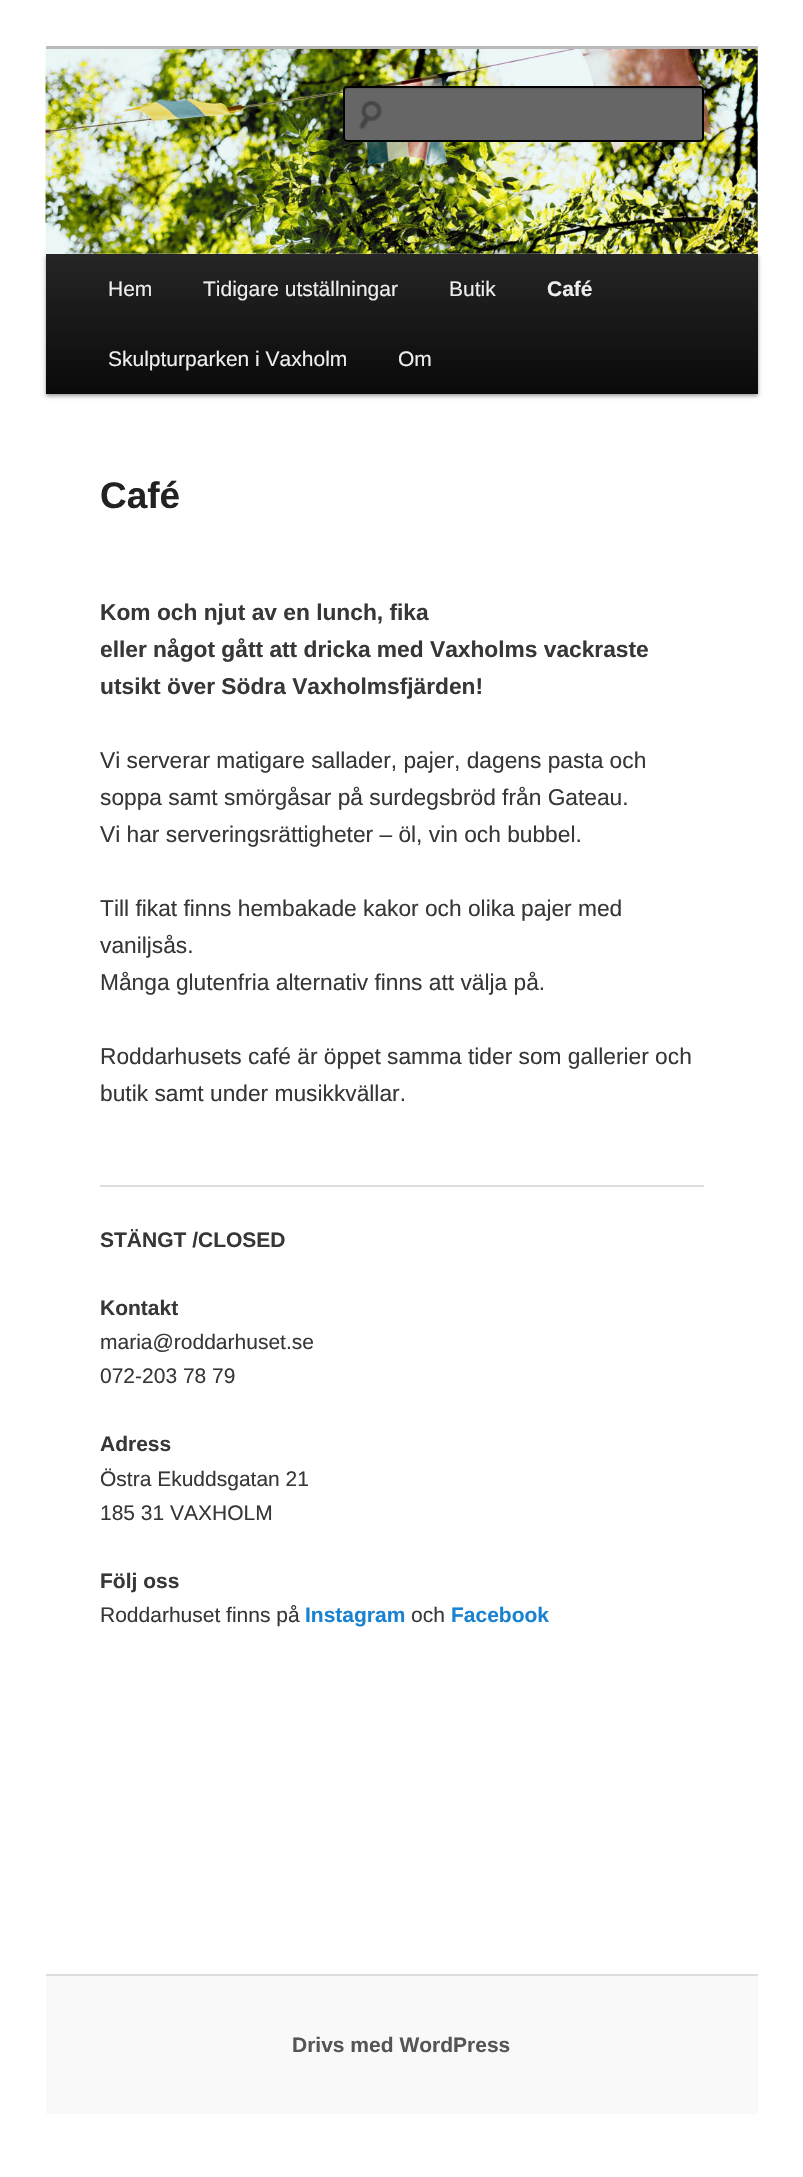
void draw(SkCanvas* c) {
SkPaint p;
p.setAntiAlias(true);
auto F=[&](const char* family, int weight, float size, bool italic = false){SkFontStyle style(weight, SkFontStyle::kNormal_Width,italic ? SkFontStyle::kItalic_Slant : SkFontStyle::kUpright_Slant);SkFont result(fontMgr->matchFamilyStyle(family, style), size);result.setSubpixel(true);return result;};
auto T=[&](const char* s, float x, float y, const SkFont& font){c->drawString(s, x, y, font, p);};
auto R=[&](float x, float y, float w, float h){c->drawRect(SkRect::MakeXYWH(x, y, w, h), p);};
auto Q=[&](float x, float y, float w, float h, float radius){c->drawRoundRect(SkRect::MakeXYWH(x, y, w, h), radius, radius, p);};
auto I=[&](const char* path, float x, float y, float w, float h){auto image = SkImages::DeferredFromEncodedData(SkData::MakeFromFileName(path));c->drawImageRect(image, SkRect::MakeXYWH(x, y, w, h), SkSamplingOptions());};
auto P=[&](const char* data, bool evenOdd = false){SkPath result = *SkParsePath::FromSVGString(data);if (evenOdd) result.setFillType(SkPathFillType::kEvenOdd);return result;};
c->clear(0xffffffff);
p.setColor(0xffbbbbbb);
R(46,46,712,4);
p.setColor(0x66000000);
p.setMaskFilter(SkMaskFilter::MakeBlur(kNormal_SkBlurStyle, 2));
c->drawRect(SkRect::MakeXYWH(46,256,712,140),p);
p.setMaskFilter(nullptr);
I("1.png",45,49,713,205);
p.setColor(0xff666666);
Q(343,86,361,56,4);
I("2.png",359,100,23,30);
p.setColor(0xff5c5c5c);
c->drawPath(P("M346 89h354c1 0 2 1 2 2c0-1 0-3-2-3h-353c-2 0-2 2-2 3z"),p);
p.setStroke(true);
p.setStrokeWidth(2);
p.setColor(0xff000000);
c->drawRoundRect(SkRect::MakeXYWH(344,87,359,54),3,3,p);
p.setStroke(false);
{
const SkColor colors[] = {0xff252525,0xff0a0a0a};
const float stops[] = {0,1};
const SkPoint ends[] = {{402,254}, {402,394}};
p.setShader(SkGradientShader::MakeLinear(ends, colors, stops, 2, SkTileMode::kClamp));
p.setAlpha(255);
}
R(46,254,712,140);
auto f1 = F("Liberation Sans",400,21);
p.setShader(nullptr);
p.setColor(0xffeeeeee);
T("Hem",108,296,f1);
T("Tidigare utställningar",203,296,f1);
T("Butik",449,296,f1);
auto f2 = F("Liberation Sans",700,21);
T("Café",547,296,f2);
T("Skulpturparken i Vaxholm",108,366,f1);
T("Om",398,366,f1);
p.setColor(0xffdddddd);
R(100,1185,604,2);
auto f3 = F("Liberation Sans",700,37);
p.setColor(0xff222222);
T("Café",100,508,f3);
auto f4 = F("Liberation Sans",700,22.75);
p.setColor(0xff373737);
T("Kom och njut av en lunch, fika",100,620,f4);
T("eller något gått att dricka med Vaxholms vackraste",100,657,f4);
T("utsikt över Södra Vaxholmsfjärden!",100,694,f4);
auto f5 = F("Liberation Sans",400,22.75);
T("Vi serverar matigare sallader, pajer, dagens pasta och",100,768,f5);
T("soppa samt smörgåsar på surdegsbröd från Gateau.",100,805,f5);
T("Vi har serveringsrättigheter – öl, vin och bubbel.",100,842,f5);
T("Till fikat finns hembakade kakor och olika pajer med",100,916,f5);
T("vaniljsås.",100,953,f5);
T("Många glutenfria alternativ finns att välja på.",100,990,f5);
T("Roddarhusets café är öppet samma tider som gallerier och",100,1064,f5);
T("butik samt under musikkvällar.",100,1101,f5);
T("STÄNGT /CLOSED",100,1247,f2);
T("Kontakt",100,1315,f2);
T("maria@roddarhuset.se",100,1349,f1);
T("072-203 78 79",100,1383,f1);
T("Adress",100,1451,f2);
T("Östra Ekuddsgatan 21",100,1486,f1);
T("185 31 VAXHOLM",100,1520,f1);
T("Följ oss",100,1588,f2);
T("Roddarhuset finns på",100,1622,f1);
p.setColor(0xff1982d1);
T("Instagram",305,1622,f2);
p.setColor(0xff373737);
T("och",411,1622,f1);
p.setColor(0xff1982d1);
T("Facebook",451,1622,f2);
p.setColor(0xfff9f9f9);
R(46,1976,712,138);
p.setColor(0xffdddddd);
R(46,1974,712,2);
p.setColor(0xff555555);
T("Drivs med WordPress",292,2052,f2);
}
